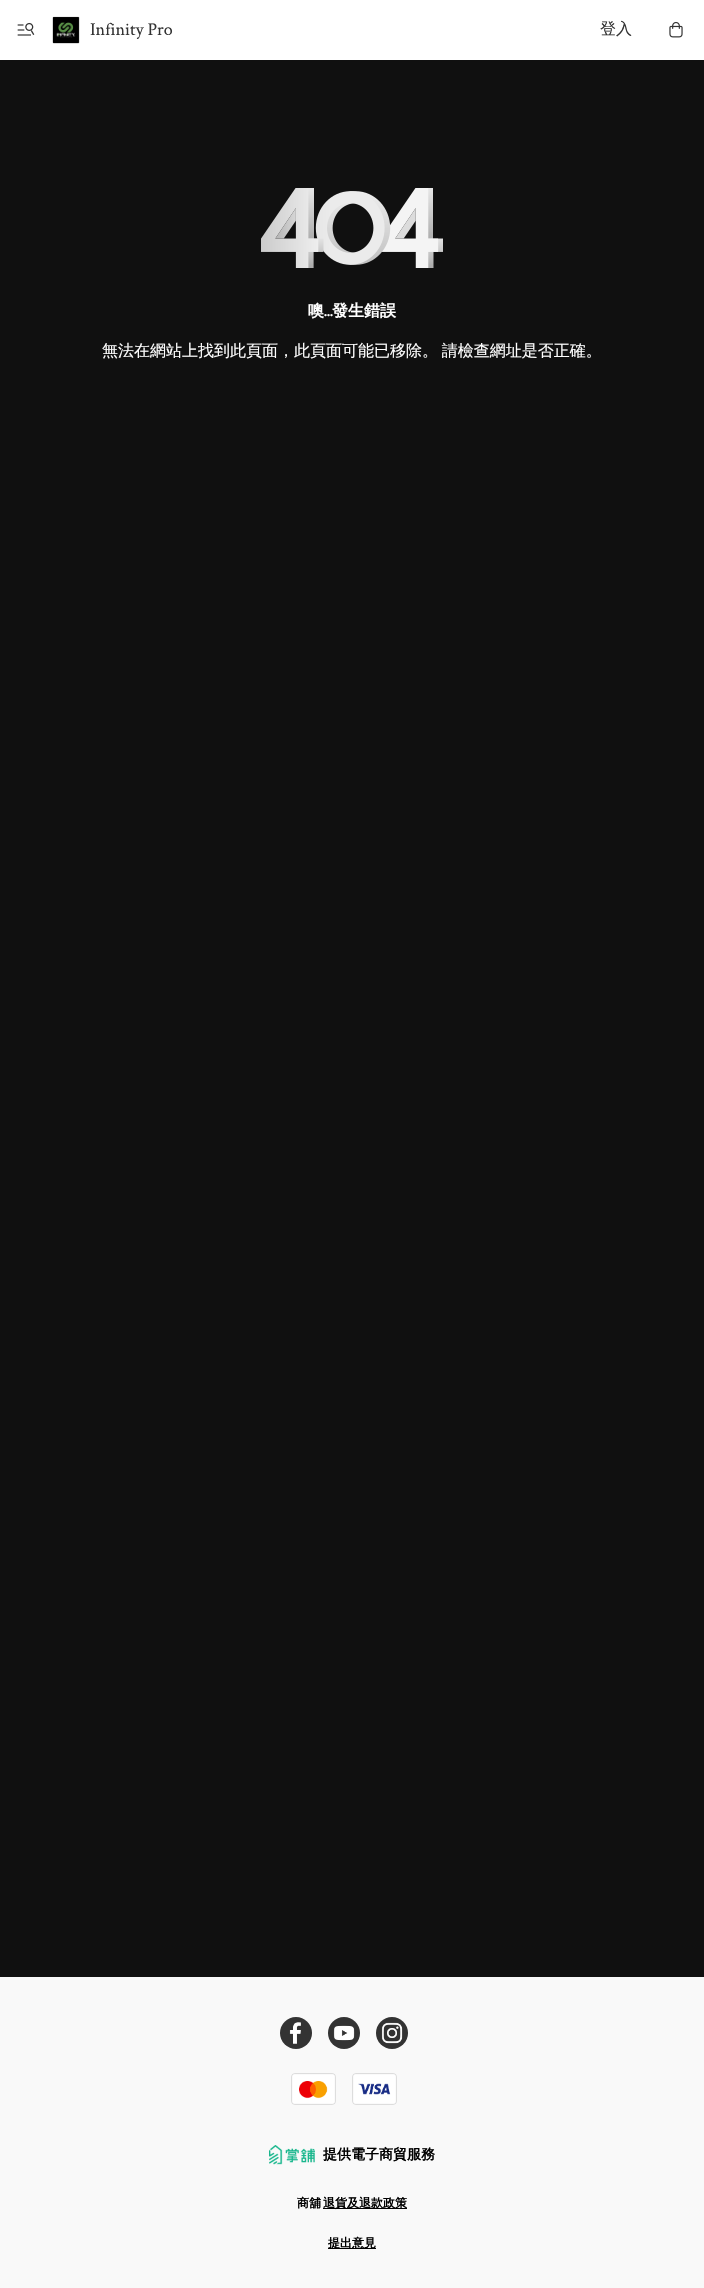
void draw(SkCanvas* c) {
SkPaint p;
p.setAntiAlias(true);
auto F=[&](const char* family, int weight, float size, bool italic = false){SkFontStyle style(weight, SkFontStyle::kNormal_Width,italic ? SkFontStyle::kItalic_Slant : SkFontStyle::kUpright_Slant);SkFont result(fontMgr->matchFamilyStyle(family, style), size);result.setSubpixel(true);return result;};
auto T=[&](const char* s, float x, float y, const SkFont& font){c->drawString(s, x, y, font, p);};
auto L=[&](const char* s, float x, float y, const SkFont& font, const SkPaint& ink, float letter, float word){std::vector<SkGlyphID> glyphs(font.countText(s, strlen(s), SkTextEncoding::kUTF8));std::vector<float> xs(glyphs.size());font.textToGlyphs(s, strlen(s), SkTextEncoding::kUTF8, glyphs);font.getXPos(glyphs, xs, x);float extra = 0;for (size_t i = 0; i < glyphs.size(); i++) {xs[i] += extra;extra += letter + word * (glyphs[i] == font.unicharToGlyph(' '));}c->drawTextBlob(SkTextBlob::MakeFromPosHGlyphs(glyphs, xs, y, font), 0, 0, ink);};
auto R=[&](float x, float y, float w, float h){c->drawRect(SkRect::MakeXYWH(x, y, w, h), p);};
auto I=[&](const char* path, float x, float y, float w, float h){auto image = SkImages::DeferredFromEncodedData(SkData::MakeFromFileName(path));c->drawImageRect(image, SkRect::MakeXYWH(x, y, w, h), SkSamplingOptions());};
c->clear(0xff101010);
p.setColor(0xffffffff);
R(0,0,704,60);
I("1.png",17,22,18,14);
I("2.png",52,16,28,28);
auto f1 = F("Crimson Text",400,18);
p.setColor(0xff333333);
T("Infinity Pro",90,35,f1);
auto f2 = F("WenQuanYi Zen Hei",500,16);
T("登入",600,34,f2);
I("3.png",669,21,14,17);
I("4.png",261,188,182,80);
auto f3 = F("WenQuanYi Zen Hei",700,16);
p.setColor(0xffffffff);
T("噢",308,316,f3);
auto f4 = F("Crimson Text",600,16);
T("...",324,316,f4);
T("發生錯誤",332,316,f3);
L("無法在網站上找到此頁面，此頁面可能已移除。 請檢查網址是否正確。",102,356,f2,p,0,-1);
p.setColor(0xfff9f9f9);
R(0,1977,704,311);
p.setColor(0xff333333);
c->drawCircle(296,2033,16,p);
I("5.png",289,2022,12,22);
c->drawCircle(344,2033,16,p);
I("6.png",333,2025,22,16);
c->drawCircle(392,2033,16,p);
I("7.png",381,2022,22,22);
I("8.png",291,2073,45,32);
I("9.png",352,2073,45,32);
I("10.png",269,2145,46,20);
auto f5 = F("WenQuanYi Zen Hei",700,14);
p.setColor(0xff000000);
T("提供電子商貿服務",323,2159,f5);
auto f6 = F("WenQuanYi Zen Hei",700,12);
T("商舖",297,2207,f6);
R(323,2208,84,1);
T("退貨及退款政策",323,2207,f6);
R(328,2248,48,1);
T("提出意見",328,2247,f6);
}
